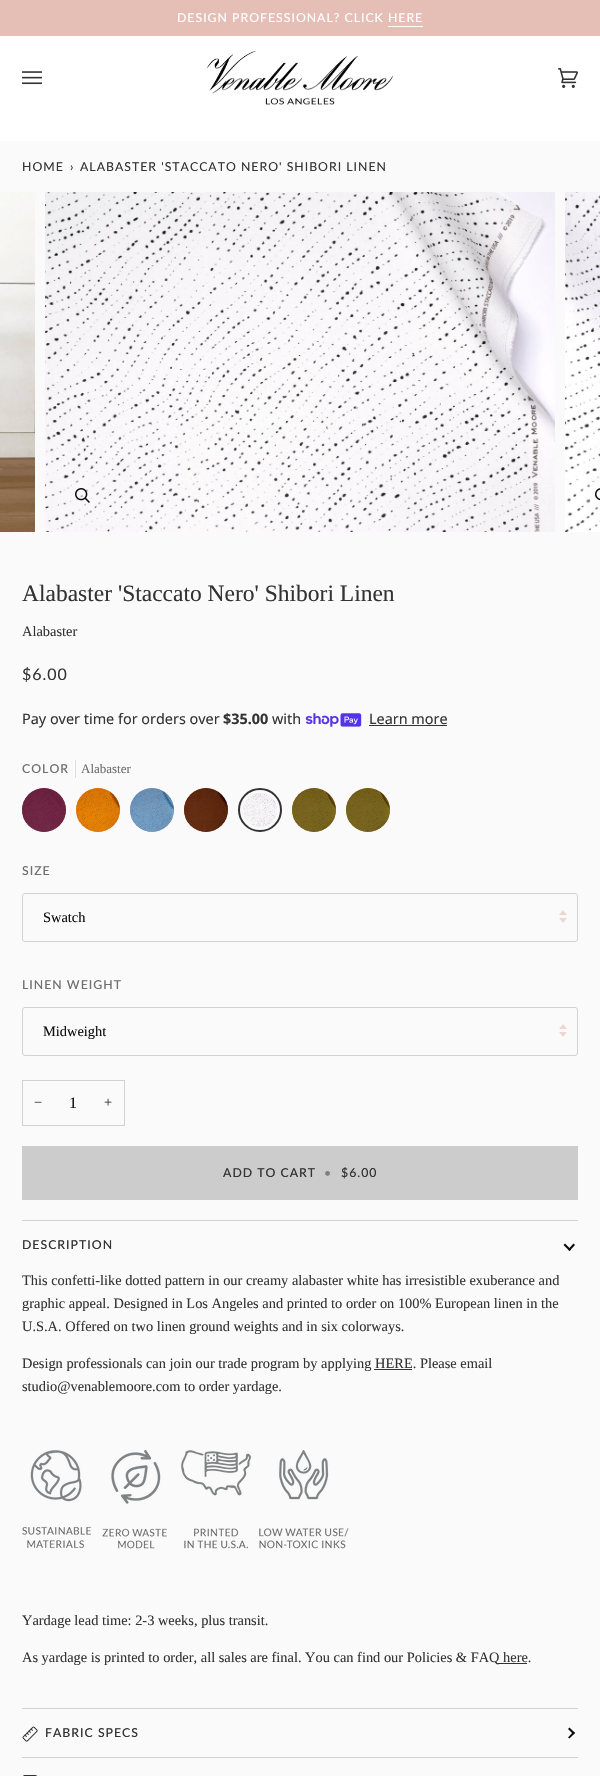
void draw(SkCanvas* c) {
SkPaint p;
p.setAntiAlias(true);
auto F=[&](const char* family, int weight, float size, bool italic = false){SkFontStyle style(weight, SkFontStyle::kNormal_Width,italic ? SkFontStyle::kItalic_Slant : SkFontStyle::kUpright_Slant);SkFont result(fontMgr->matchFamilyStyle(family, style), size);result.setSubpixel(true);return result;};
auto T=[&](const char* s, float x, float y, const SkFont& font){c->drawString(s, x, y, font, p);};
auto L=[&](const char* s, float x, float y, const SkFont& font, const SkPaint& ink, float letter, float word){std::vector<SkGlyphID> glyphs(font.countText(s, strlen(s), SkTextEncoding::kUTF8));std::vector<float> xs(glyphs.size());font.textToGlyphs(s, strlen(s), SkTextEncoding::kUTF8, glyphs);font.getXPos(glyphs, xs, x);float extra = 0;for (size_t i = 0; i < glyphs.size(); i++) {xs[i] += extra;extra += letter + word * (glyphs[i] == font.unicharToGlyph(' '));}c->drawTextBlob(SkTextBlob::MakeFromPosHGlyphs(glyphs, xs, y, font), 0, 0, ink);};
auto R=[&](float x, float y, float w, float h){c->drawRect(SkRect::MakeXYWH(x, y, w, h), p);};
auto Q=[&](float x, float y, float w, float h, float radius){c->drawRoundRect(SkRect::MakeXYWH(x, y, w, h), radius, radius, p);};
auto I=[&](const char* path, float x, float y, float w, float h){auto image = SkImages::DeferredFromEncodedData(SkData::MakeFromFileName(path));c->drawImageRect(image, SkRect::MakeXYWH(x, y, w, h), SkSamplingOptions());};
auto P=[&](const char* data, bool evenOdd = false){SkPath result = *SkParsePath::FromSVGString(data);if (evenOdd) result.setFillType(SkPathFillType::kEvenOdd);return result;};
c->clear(0xffffffff);
p.setColor(0xffe5beb6);
R(0,0,600,36);
auto f1 = F("Lato",400,12.3);
p.setColor(0xffffffff);
L("DESIGN PROFESSIONAL? CLICK HERE",177,22,f1,p,1,0);
R(388,26,35,1);
I("1.png",22,71,20,14);
I("2.png",207,51,186,54);
I("3.png",558,68,20,20);
p.setColor(0xfffafafa);
R(0,141,600,1635);
p.setColor(0xff333333);
L("HOME",22,171,f1,p,1,0);
L("›",70,171,f1,p,1,0);
L("ALABASTER 'STACCATO NERO' SHIBORI LINEN",80,171,f1,p,1,0);
I("4.png",0,192,35,340);
I("5.png",45,192,510,340);
p.setColor(0x4dfafafa);
Q(65,477,35,35,4);
I("6.png",75,488,15,15);
I("7.png",565,192,35,340);
c->drawPath(P("M589 477h11v35h-11c-2 0-4-2-4-4v-27c0-2 2-4 4-4z"),p);
I("8.png",595,488,5,13);
auto f2 = F("Liberation Serif",400,23.5);
p.setColor(0xff333333);
T("Alabaster 'Staccato Nero' Shibori Linen",22,601,f2);
auto f3 = F("Liberation Serif",400,14.4);
T("Alabaster",22,636,f3);
auto f4 = F("Lato",400,16);
L("$6.00",22,680,f4,p,1,0);
auto f5 = F("Noto Sans",400,14.4);
T("Pay over time for orders over",22,724,f5);
auto f6 = F("Noto Sans",700,14.4);
T("$35.00",223,724,f6);
T("with",272,724,f5);
I("9.png",305,713,57,14);
T("Learn more",369,724,f5);
R(369,725,78,1);
auto f7 = F("Lato",500,12.3);
p.setColor(0xff6f6f6f);
L("COLOR",22,773,f7,p,1,0);
p.setColor(0xffdedede);
R(75,760,1,18);
auto f8 = F("Liberation Serif",400,13);
p.setColor(0xff6f6f6f);
T("Alabaster",81,773,f8);
I("10.png",22,788,44,44);
I("11.png",22,788,44,44);
I("12.png",76,788,44,44);
I("13.png",76,788,44,44);
I("14.png",130,788,44,44);
I("15.png",130,788,44,44);
I("16.png",184,788,44,44);
I("17.png",184,788,44,44);
I("18.png",243,793,34,34);
I("19.png",243,793,34,34);
p.setStroke(true);
p.setStrokeWidth(2);
p.setColor(0xff333333);
c->drawCircle(260,810,21,p);
I("20.png",292,788,44,44);
I("21.png",292,788,44,44);
I("20.png",346,788,44,44);
I("22.png",346,788,44,44);
p.setStroke(false);
p.setColor(0xff6f6f6f);
L("SIZE",22,875,f7,p,1,0);
p.setStroke(true);
p.setStrokeWidth(1);
p.setColor(0xffd2d2d2);
c->drawRoundRect(SkRect::MakeXYWH(22.5,893.5,555,48),2.5,2.5,p);
p.setStroke(false);
p.setColor(0xff0e0c0c);
T("Swatch",43,922,f3);
I("23.png",559,910,8,13);
p.setColor(0xff6f6f6f);
L("LINEN WEIGHT",22,989,f7,p,1,0);
p.setStroke(true);
p.setColor(0xffd2d2d2);
c->drawRoundRect(SkRect::MakeXYWH(22.5,1007.5,555,48),2.5,2.5,p);
p.setStroke(false);
p.setColor(0xff0e0c0c);
T("Midweight",43,1036,f3);
I("23.png",559,1024,8,13);
p.setStroke(true);
p.setColor(0xffd2d2d2);
c->drawRect(SkRect::MakeXYWH(22.5,1080.5,102,45),p);
p.setStroke(false);
p.setColor(0xff333333);
T("−",34,1107,f3);
auto f9 = F("Liberation Serif",400,16);
p.setColor(0xff0e0c0c);
T("1",69,1108,f9);
p.setColor(0xff333333);
T("+",104,1107,f3);
p.setColor(0xffcccccc);
R(22,1146,556,54);
p.setColor(0xff333333);
L("ADD TO CART",223,1177,f7,p,1,0);
p.setColor(0xff808080);
L("•",324,1177,f7,p,1,0);
p.setColor(0xff333333);
L("$6.00",341,1177,f7,p,1,0);
p.setColor(0xffd2d2d2);
R(22,1220,556,1);
R(22,1708,556,1);
p.setColor(0xff333333);
L("DESCRIPTION",22,1249,f7,p,1,0);
p.setColor(0xff0e0c0c);
c->drawPath(P("M568 1249.5l5.5-6l1.5 1.5l-5.5 6z"),p);
c->drawPath(P("M563.5 1245l1.5-1.5l6 6l-1.5 1.5z"),p);
p.setColor(0xff333333);
T("This confetti-like dotted pattern in our creamy alabaster white has irresistible exuberance and",22,1285,f3);
T("graphic appeal. Designed in Los Angeles and printed to order on 100% European linen in the",22,1308,f3);
T("U.S.A. Offered on two linen ground weights and in six colorways.",22,1331,f3);
T("Design professionals can join our trade program by applying HERE. Please email",22,1368,f3);
R(374,1369,38,1);
T("studio@venablemoore.com to order yardage.",22,1391,f3);
I("24.png",22,1450,69,99);
I("25.png",102,1450,65,99);
I("26.png",181,1450,70,99);
I("27.png",259,1450,90,99);
T("Yardage lead time: 2-3 weeks, plus transit.",22,1625,f3);
T("As yardage is printed to order, all sales are final. You can find our Policies & FAQ here.",22,1662,f3);
R(498,1663,29,1);
p.setColor(0xffd2d2d2);
R(22,1757,556,1);
I("28.png",22,1726,16,16);
p.setColor(0xff333333);
L("FABRIC SPECS",45,1737,f7,p,1,0);
p.setColor(0xff0e0c0c);
c->drawPath(P("M573.5 1734.5l-5.5-5.5l1.5-1.5l5.5 5.5z"),p);
c->drawPath(P("M569.5 1738.5l-1.5-1l5.5-6l1.5 1.5z"),p);
I("29.png",23,1775,14,1);
}
